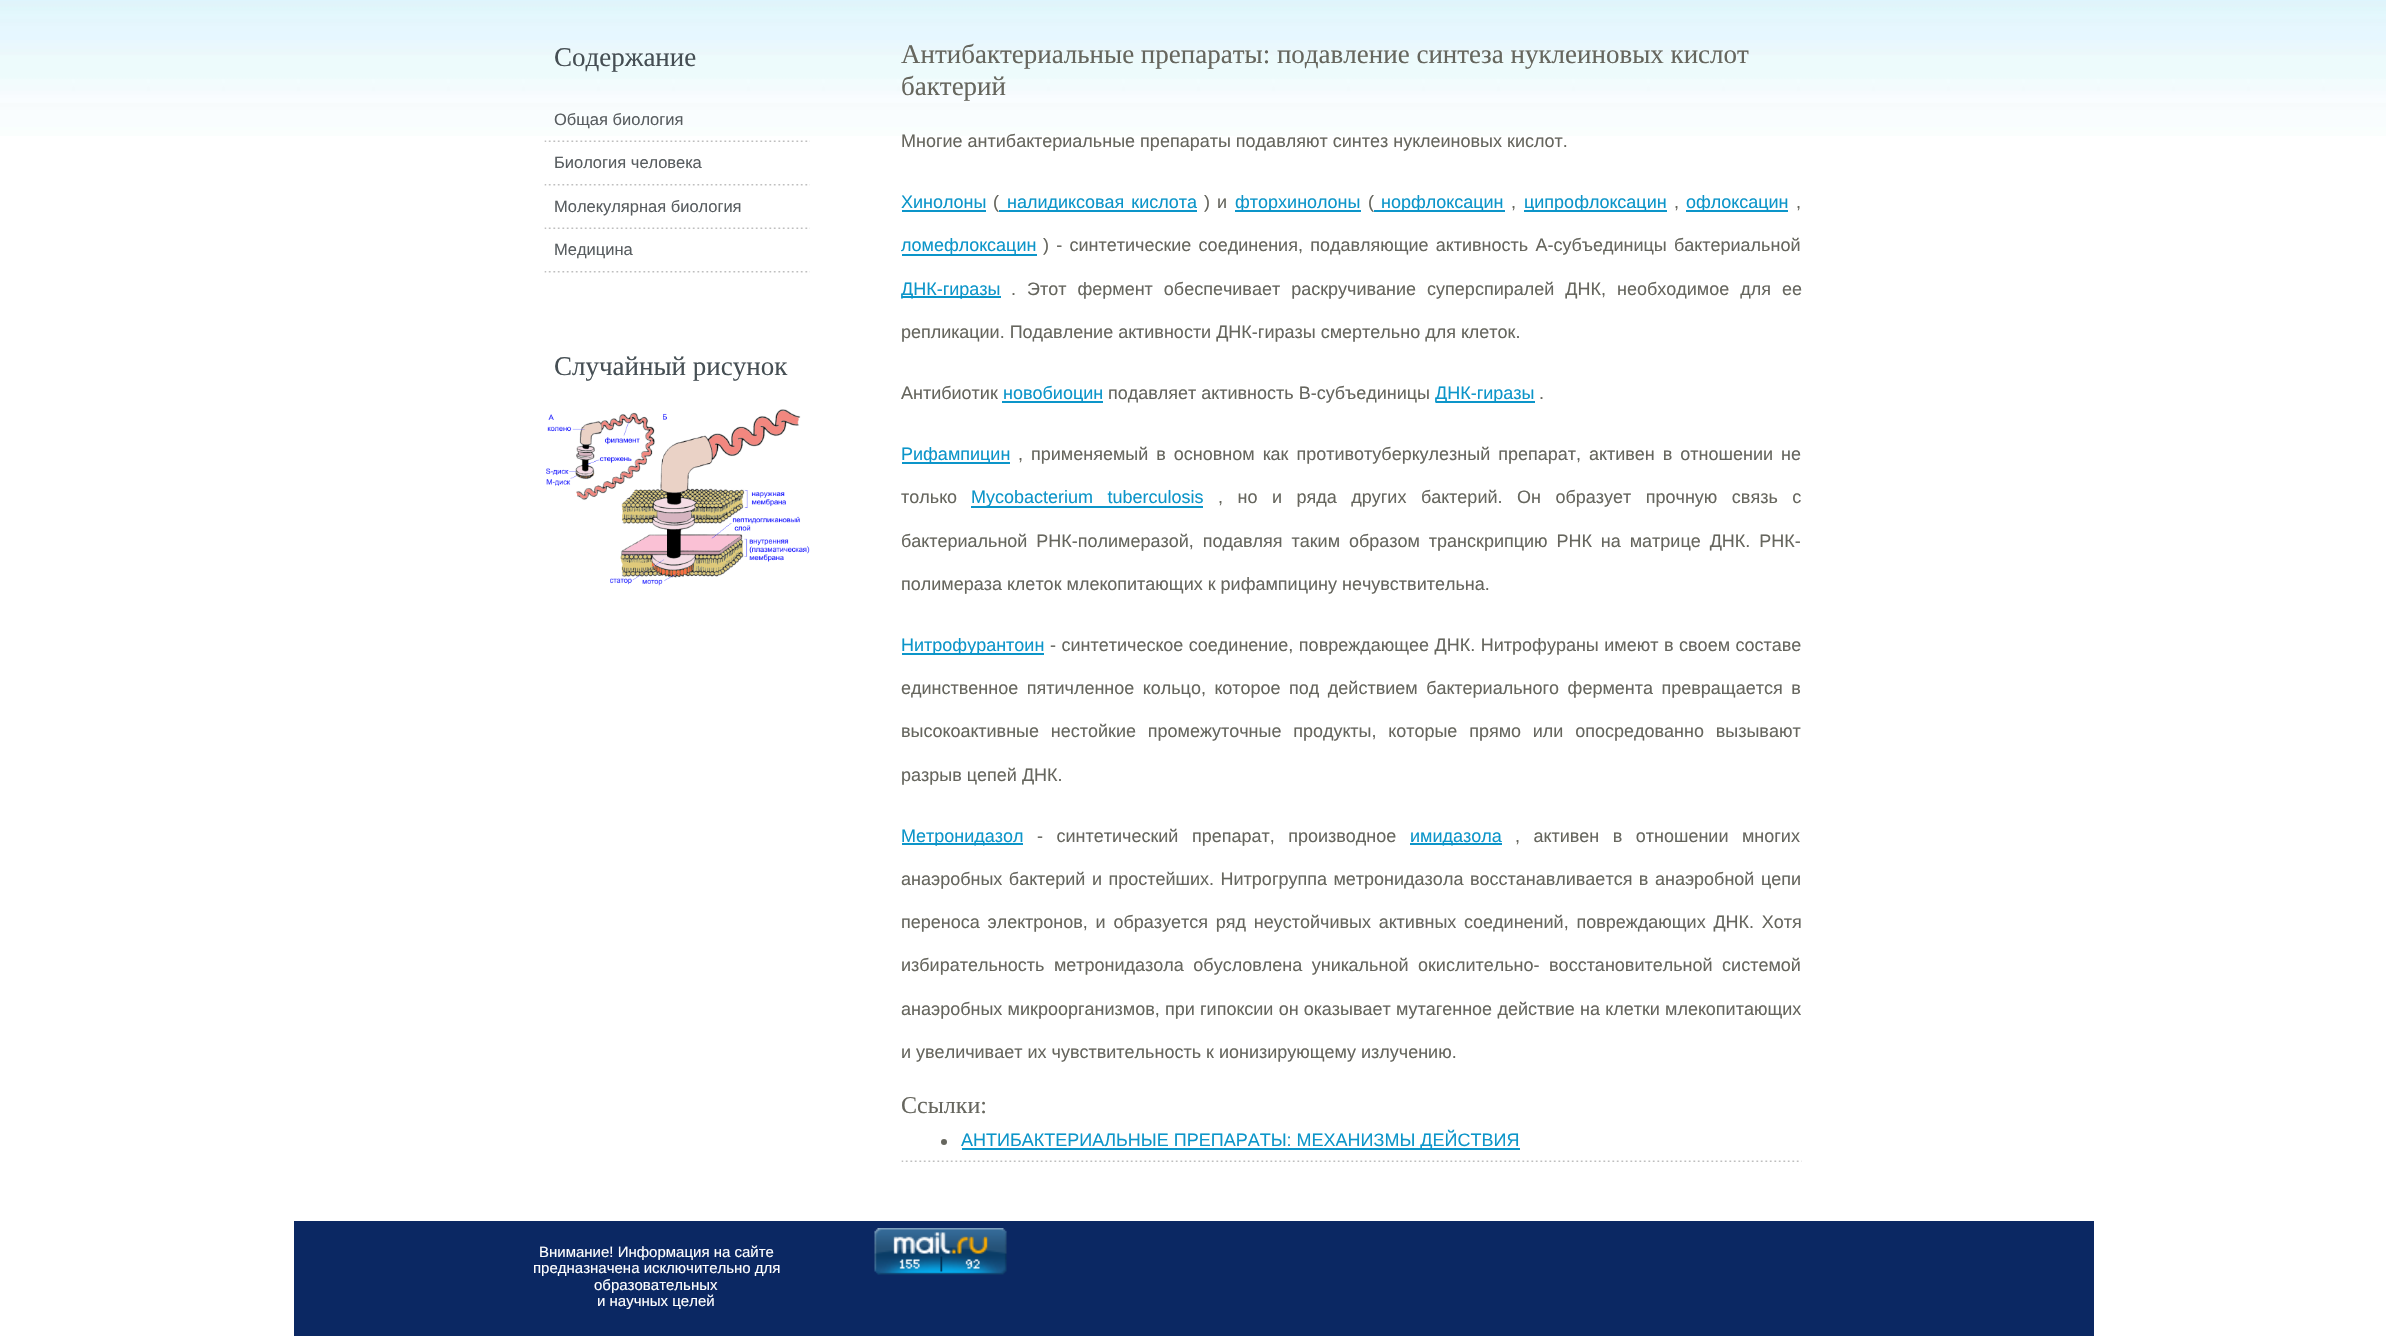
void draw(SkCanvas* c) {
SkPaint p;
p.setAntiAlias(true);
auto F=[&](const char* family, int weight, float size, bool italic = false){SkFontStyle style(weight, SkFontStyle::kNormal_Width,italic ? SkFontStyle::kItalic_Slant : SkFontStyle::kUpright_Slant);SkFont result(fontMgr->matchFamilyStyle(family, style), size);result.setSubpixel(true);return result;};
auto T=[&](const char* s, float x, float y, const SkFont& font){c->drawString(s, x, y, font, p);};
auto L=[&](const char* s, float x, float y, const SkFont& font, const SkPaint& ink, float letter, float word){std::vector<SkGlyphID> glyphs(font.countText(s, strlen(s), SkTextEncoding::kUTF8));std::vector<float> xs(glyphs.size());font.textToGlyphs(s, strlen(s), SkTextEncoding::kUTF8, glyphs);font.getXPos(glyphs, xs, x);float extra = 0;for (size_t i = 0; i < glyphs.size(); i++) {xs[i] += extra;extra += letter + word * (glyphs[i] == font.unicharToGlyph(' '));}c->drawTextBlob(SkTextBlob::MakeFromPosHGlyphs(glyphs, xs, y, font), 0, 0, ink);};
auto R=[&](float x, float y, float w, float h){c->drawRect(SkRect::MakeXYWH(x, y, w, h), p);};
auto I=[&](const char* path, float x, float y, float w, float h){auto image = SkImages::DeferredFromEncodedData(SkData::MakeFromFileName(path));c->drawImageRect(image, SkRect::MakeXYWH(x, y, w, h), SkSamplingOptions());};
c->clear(0xffffffff);
I("1.png",0,0,2386,136);
auto f1 = F("Liberation Serif",400,27);
p.setColor(0xff464f54);
T("Содержание",554,66,f1);
I("2.png",544,140,266,2);
auto f2 = F("Liberation Sans",400,16.5);
p.setColor(0xff585d60);
T("Общая биология",554,125,f2);
I("3.png",544,184,266,2);
T("Биология человека",554,168,f2);
I("2.png",544,227,266,2);
T("Молекулярная биология",554,212,f2);
I("4.png",544,271,266,2);
T("Медицина",554,255,f2);
p.setColor(0xff464f54);
T("Случайный рисунок",554,375,f1);
I("5.png",546,409,264,177);
I("6.png",901,1160,901,2);
p.setColor(0xff66665e);
T("Антибактериальные препараты: подавление синтеза нуклеиновых кислот",901,63,f1);
T("бактерий",901,95,f1);
auto f3 = F("Liberation Sans",400,18);
T("Многие антибактериальные препараты подавляют синтез нуклеиновых кислот.",901,147,f3);
p.setColor(0xff0c95c9);
T("Хинолоны",901,208,f3);
R(902,210,84,2);
p.setColor(0xff66665e);
T("(",993,208,f3);
p.setColor(0xff0c95c9);
R(999,210,198,2);
L("налидиксовая кислота",1007,208,f3,p,0,2);
p.setColor(0xff66665e);
L(") и",1204,208,f3,p,0,2);
p.setColor(0xff0c95c9);
R(1235,210,126,2);
T("фторхинолоны",1235,208,f3);
p.setColor(0xff66665e);
T("(",1368,208,f3);
p.setColor(0xff0c95c9);
R(1374,210,131,2);
T("норфлоксацин",1381,208,f3);
p.setColor(0xff66665e);
T(",",1511,208,f3);
p.setColor(0xff0c95c9);
R(1524,210,143,2);
T("ципрофлоксацин",1524,208,f3);
p.setColor(0xff66665e);
T(",",1674,208,f3);
p.setColor(0xff0c95c9);
R(1686,210,102,2);
T("офлоксацин",1686,208,f3);
p.setColor(0xff66665e);
T(",",1796,208,f3);
p.setColor(0xff0c95c9);
R(902,254,135,2);
T("ломефлоксацин",901,251,f3);
p.setColor(0xff66665e);
L(") - синтетические соединения, подавляющие активность A-субъединицы бактериальной",1043,251,f3,p,0,2.25);
p.setColor(0xff0c95c9);
R(902,296,99,2);
T("ДНК-гиразы",901,295,f3);
p.setColor(0xff66665e);
L(". Этот фермент обеспечивает раскручивание суперспиралей ДНК, необходимое для ее",1011,295,f3,p,0,6);
T("репликации. Подавление активности ДНК-гиразы смертельно для клеток.",901,338,f3);
T("Антибиотик",901,399,f3);
p.setColor(0xff0c95c9);
R(1002,401,101,2);
T("новобиоцин",1003,399,f3);
p.setColor(0xff66665e);
T("подавляет активность В-субъединицы",1108,399,f3);
p.setColor(0xff0c95c9);
R(1436,401,99,2);
T("ДНК-гиразы",1435,399,f3);
p.setColor(0xff66665e);
T(".",1539,399,f3);
p.setColor(0xff0c95c9);
R(902,462,108,2);
T("Рифампицин",901,460,f3);
p.setColor(0xff66665e);
L(", применяемый в основном как противотуберкулезный препарат, активен в отношении не",1018,460,f3,p,0,3);
T("только",901,503,f3);
p.setColor(0xff0c95c9);
R(971,506,232,2);
L("Муcobacterium tuberculosis",971,503,f3,p,0,9.5);
p.setColor(0xff66665e);
L(", но и ряда других бактерий. Он образует прочную связь с",1218,503,f3,p,0,9.5);
L("бактериальной РНК-полимеразой, подавляя таким образом транскрипцию РНК на матрице ДНК. РНК-",901,547,f3,p,0,3.9);
T("полимераза клеток млекопитающих к рифампицину нечувствительна.",901,590,f3);
p.setColor(0xff0c95c9);
R(902,653,142,2);
T("Нитрофурантоин",901,651,f3);
p.setColor(0xff66665e);
L("- синтетическое соединение, повреждающее ДНК. Нитрофураны имеют в своем составе",1050,651,f3,p,0,.5);
L("единственное пятичленное кольцо, которое под действием бактериального фермента превращается в",901,694,f3,p,0,3.5);
L("высокоактивные нестойкие промежуточные продукты, которые прямо или опосредованно вызывают",901,737,f3,p,0,6.75);
T("разрыв цепей ДНК.",901,781,f3);
p.setColor(0xff0c95c9);
R(902,843,121,2);
T("Метронидазол",901,842,f3);
p.setColor(0xff66665e);
L("- синтетический препарат, производное",1037,842,f3,p,0,8.5);
p.setColor(0xff0c95c9);
R(1410,843,92,2);
T("имидазола",1410,842,f3);
p.setColor(0xff66665e);
L(", активен в отношении многих",1515,842,f3,p,0,8.5);
L("анаэробных бактерий и простейших. Нитрогруппа метронидазола восстанавливается в анаэробной цепи",901,885,f3,p,0,1.5);
L("переноса электронов, и образуется ряд неустойчивых активных соединений, повреждающих ДНК. Хотя",901,928,f3,p,0,2.75);
L("избирательность метронидазола обусловлена уникальной окислительно- восстановительной системой",901,971,f3,p,0,4.5);
L("анаэробных микроорганизмов, при гипоксии он оказывает мутагенное действие на клетки млекопитающих",901,1015,f3,p,0,.25);
T("и увеличивает их чувствительность к ионизирующему излучению.",901,1058,f3);
auto f4 = F("Liberation Serif",400,24);
T("Ссылки:",901,1113,f4);
c->drawCircle(944,1142,3,p);
p.setColor(0xff0c95c9);
R(962,1148,558,2);
T("АНТИБАКТЕРИАЛЬНЫЕ ПРЕПАРАТЫ: МЕХАНИЗМЫ ДЕЙСТВИЯ",961,1146,f3);
p.setColor(0xff0b2863);
R(294,1221,1800,115);
auto f5 = F("Liberation Sans",400,15);
p.setColor(0xffffffff);
T("Внимание! Информация на сайте",539,1257,f5);
T("предназначена исключительно для",533,1273,f5);
T("образовательных",594,1290,f5);
T("и научных целей",597,1306,f5);
I("7.png",874,1228,133,47);
}
